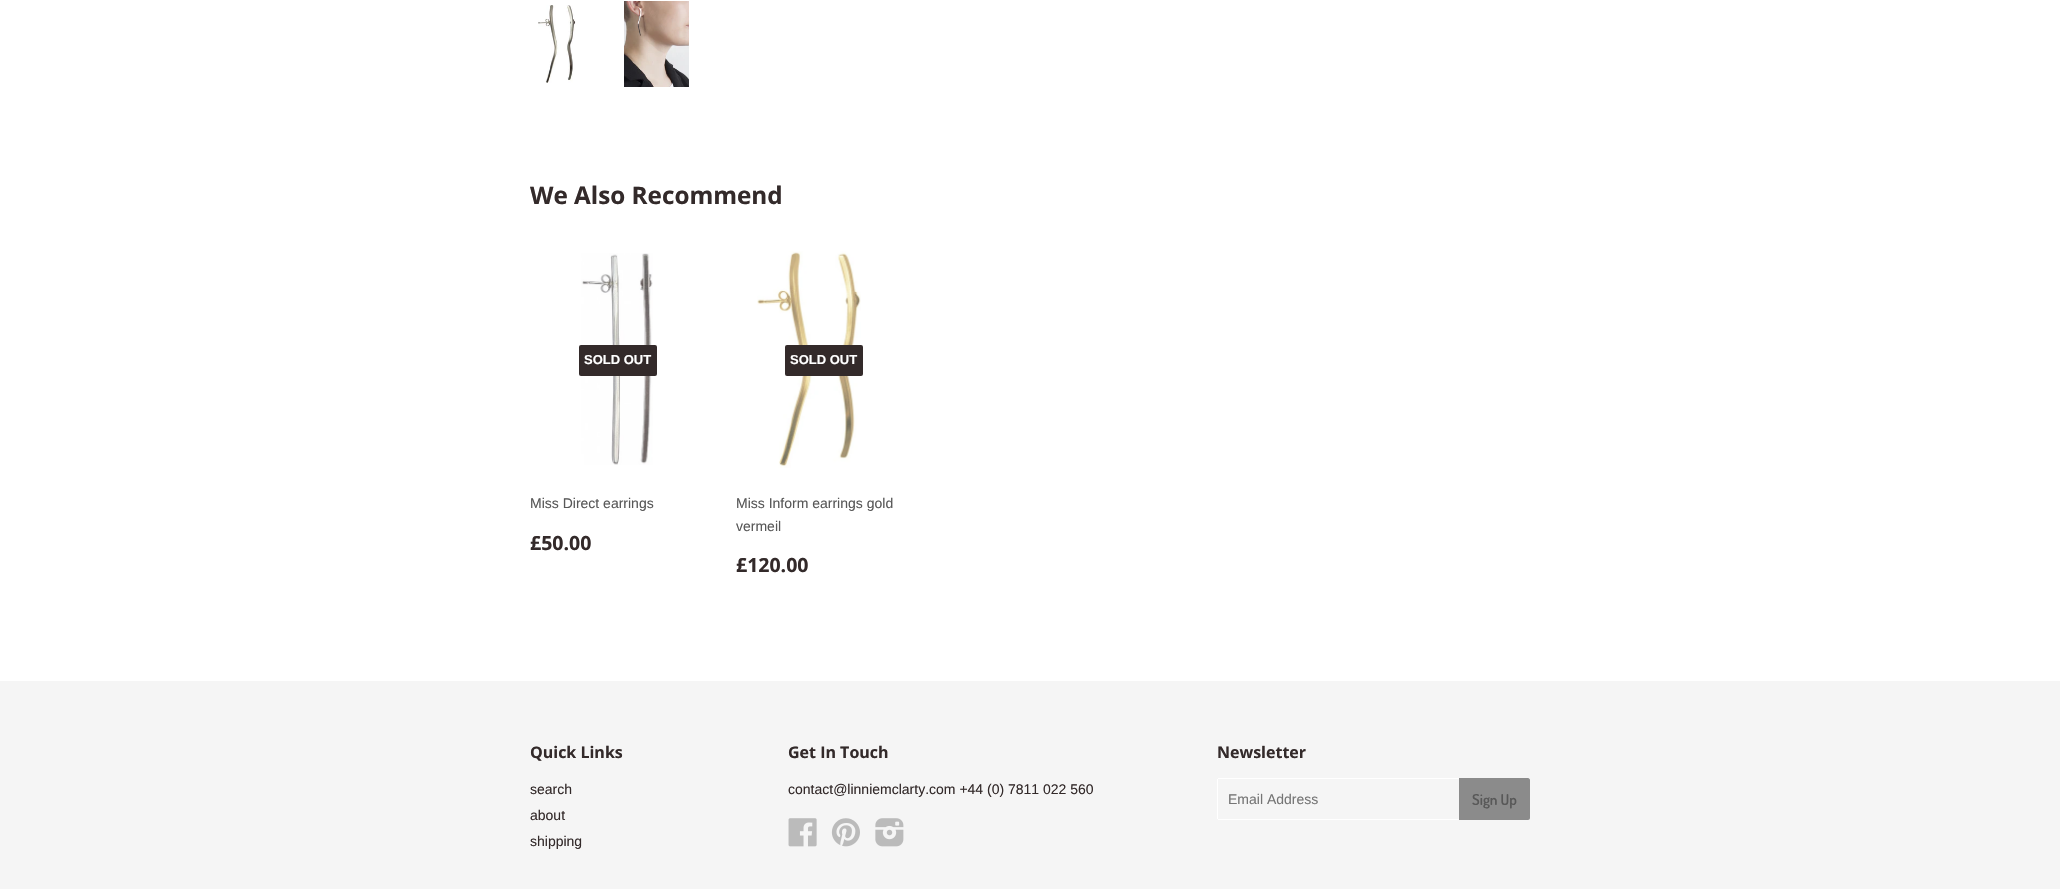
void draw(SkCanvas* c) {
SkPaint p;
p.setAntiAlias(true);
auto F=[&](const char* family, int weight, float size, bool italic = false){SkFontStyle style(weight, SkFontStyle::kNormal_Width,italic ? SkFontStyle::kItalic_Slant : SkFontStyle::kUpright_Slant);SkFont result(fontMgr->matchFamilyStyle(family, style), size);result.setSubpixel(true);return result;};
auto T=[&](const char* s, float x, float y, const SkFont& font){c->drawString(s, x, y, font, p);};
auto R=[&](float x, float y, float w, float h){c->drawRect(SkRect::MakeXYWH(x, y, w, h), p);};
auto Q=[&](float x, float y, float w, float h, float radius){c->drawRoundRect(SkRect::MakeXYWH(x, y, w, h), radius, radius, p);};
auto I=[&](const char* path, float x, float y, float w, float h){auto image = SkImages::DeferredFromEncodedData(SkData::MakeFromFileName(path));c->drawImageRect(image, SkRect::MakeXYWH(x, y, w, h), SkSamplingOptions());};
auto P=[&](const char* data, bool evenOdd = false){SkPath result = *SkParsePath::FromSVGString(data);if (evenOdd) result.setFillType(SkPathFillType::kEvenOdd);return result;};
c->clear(0xffffffff);
I("1.png",538,5,38,78);
I("2.png",624,1,65,86);
auto f1 = F("Open Sans",700,24.25);
p.setColor(0xff332a2a);
T("We Also Recommend",530,204,f1);
I("3.png",581,253,72,212);
Q(579,345,78,31,2);
auto f2 = F("Liberation Sans",700,13);
p.setColor(0xffffffff);
T("SOLD OUT",584,364,f2);
auto f3 = F("Liberation Sans",400,14);
p.setColor(0xff585858);
T("Miss Direct earrings",530,508,f3);
auto f4 = F("Open Sans",700,19.5);
p.setColor(0xff332a2a);
T("£50.00",530,550,f4);
I("4.png",757,251,104,217);
Q(785,345,78,31,2);
p.setColor(0xffffffff);
T("SOLD OUT",790,364,f2);
p.setColor(0xff585858);
T("Miss Inform earrings gold",736,508,f3);
T("vermeil",736,531,f3);
p.setColor(0xff332a2a);
T("£120.00",736,572,f4);
p.setColor(0xfff5f5f5);
R(0,681,2060,208);
auto f5 = F("Open Sans",700,16);
p.setColor(0xff332a2a);
T("Quick Links",530,758,f5);
T("search",530,794,f3);
T("about",530,820,f3);
T("shipping",530,846,f3);
T("Get In Touch",788,758,f5);
T("contact@linniemclarty.com +44 (0) 7811 022 560",788,794,f3);
I("5.png",788,818,29,29);
I("6.png",831,818,29,29);
I("7.png",875,818,29,29);
T("Newsletter",1217,758,f5);
p.setColor(0xffffffff);
R(1218,778,241,1);
R(1218,819,241,1);
R(1217,779,1,40);
p.setColor(0xff757575);
T("Email Address",1228,804,f3);
p.setColor(0xff8b8b8b);
c->drawPath(P("M1459 778h69c1 0 2 1 2 2v38c0 1-1 2-2 2h-69z"),p);
auto f6 = F("Dosis",600,15);
p.setColor(0xff585858);
T("Sign Up",1472,805,f6);
}
